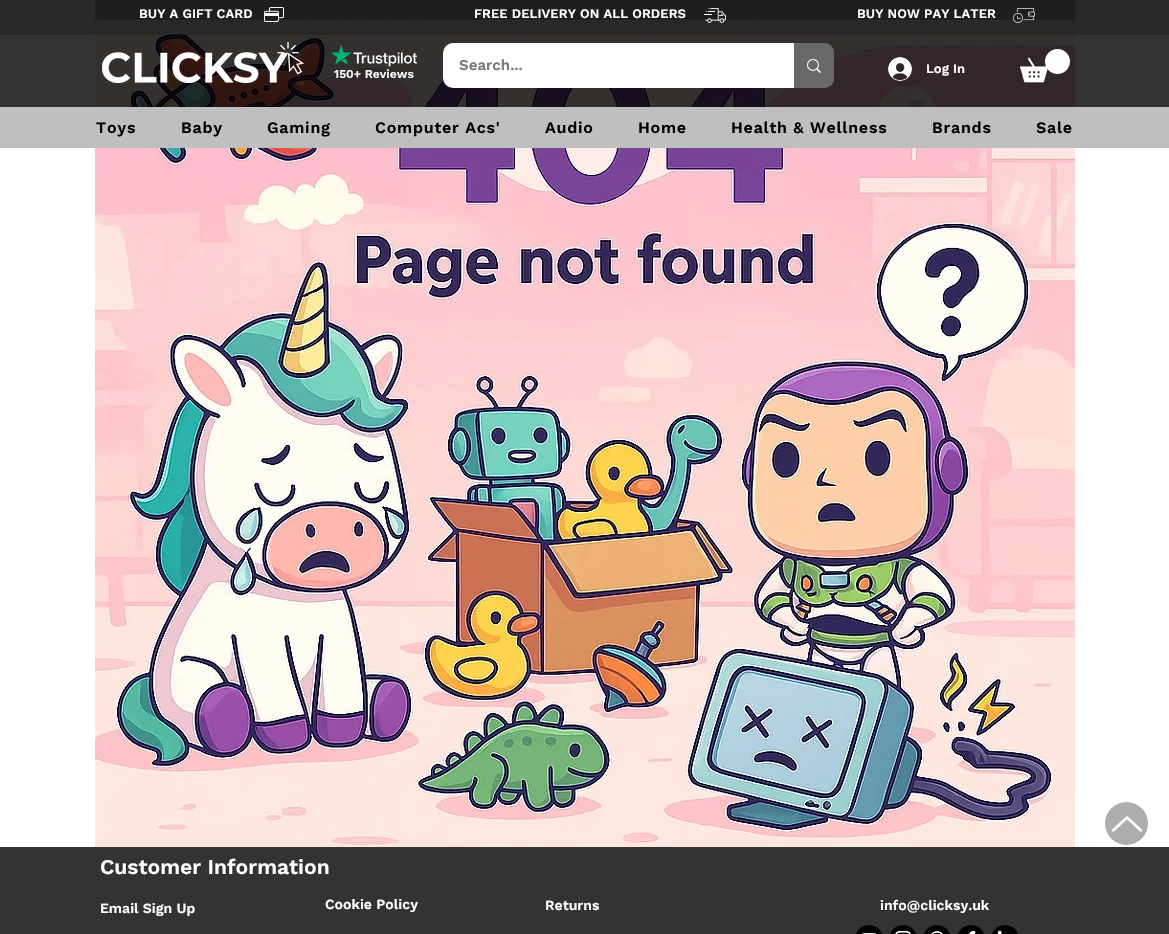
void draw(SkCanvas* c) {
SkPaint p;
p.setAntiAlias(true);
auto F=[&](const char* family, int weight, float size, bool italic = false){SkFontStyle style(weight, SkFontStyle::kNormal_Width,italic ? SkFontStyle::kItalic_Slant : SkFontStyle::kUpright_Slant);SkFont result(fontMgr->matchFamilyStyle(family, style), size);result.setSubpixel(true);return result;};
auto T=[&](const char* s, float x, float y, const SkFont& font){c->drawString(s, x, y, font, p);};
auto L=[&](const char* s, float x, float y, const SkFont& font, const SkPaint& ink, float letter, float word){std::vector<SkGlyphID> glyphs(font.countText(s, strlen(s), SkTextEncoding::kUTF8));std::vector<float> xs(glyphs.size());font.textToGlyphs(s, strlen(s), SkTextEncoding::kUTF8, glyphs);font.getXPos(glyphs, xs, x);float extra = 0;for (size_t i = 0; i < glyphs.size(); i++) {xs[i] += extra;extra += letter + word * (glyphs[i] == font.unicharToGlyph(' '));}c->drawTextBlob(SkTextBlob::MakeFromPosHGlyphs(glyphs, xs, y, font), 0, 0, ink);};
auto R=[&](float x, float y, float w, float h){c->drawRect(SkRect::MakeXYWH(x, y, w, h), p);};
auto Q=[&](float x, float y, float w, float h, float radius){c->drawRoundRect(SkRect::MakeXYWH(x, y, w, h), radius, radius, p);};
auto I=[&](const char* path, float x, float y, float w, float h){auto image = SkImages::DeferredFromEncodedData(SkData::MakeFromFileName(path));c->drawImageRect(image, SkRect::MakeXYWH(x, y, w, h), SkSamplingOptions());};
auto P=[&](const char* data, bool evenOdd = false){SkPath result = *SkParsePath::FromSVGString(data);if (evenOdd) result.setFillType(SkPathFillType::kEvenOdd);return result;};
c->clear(0xffffffff);
I("1.png",95,0,980,847);
p.setColor(0xcc000000);
R(0,0,1169,107);
p.setColor(0xad242323);
R(0,0,1169,35);
auto f1 = F("Work Sans",600,13);
p.setColor(0xffffffff);
L("BUY A GIFT CARD",139,18,f1,p,.1,0);
I("2.png",264,7,20,15);
L("FREE DELIVERY ON ALL ORDERS",474,18,f1,p,.1,0);
I("3.png",704,8,22,15);
L("BUY NOW PAY LATER",857,18,f1,p,.1,0);
I("4.png",1013,8,22,15);
I("5.png",102,42,202,41);
I("6.png",331,45,86,22);
auto f2 = F("Work Sans",600,12);
T("150+ Reviews",334,78,f2);
Q(443,43,391,45,10);
auto f3 = F("Work Sans",600,15);
p.setColor(0xff787878);
T("Search...",459,70,f3);
p.setColor(0xa6191919);
c->drawPath(P("M794 43h30c5.5 0 10 4.5 10 10v25c0 5.5-4.5 10-10 10h-30z"),p);
I("7.png",807,59,14,14);
I("8.png",888,57,24,24);
p.setColor(0xffffffff);
T("Log In",926,73,f1);
I("9.png",1020,49,50,34);
p.setColor(0xffbfbfbf);
R(0,107,1169,41);
auto f4 = F("Work Sans",600,16);
p.setColor(0xff000000);
L("Toys",96,133,f4,p,.75,0);
L("Baby",181,133,f4,p,.75,0);
L("Gaming",267,133,f4,p,.75,0);
L("Computer Acs'",375,133,f4,p,.75,0);
L("Audio",545,133,f4,p,.75,0);
L("Home",638,133,f4,p,.75,0);
L("Health & Wellness",731,133,f4,p,.75,0);
L("Brands",932,133,f4,p,.75,0);
L("Sale",1036,133,f4,p,.75,0);
p.setColor(0xffadadad);
c->drawCircle(1126.5,823.5,21.5,p);
I("10.png",1111,816,32,16);
p.setColor(0xff333333);
R(0,847,1169,87);
auto f5 = F("Work Sans",600,21);
p.setColor(0xffffffff);
T("Customer Information",100,874,f5);
auto f6 = F("Work Sans",600,14);
T("Email Sign Up",100,913,f6);
T("Cookie Policy",325,909,f6);
T("Returns",545,910,f6);
T("info@clicksy.uk",880,910,f6);
I("11.png",856,925,26,9);
I("12.png",890,925,26,9);
I("13.png",924,925,26,9);
I("14.png",958,925,26,9);
I("15.png",992,925,26,9);
}
